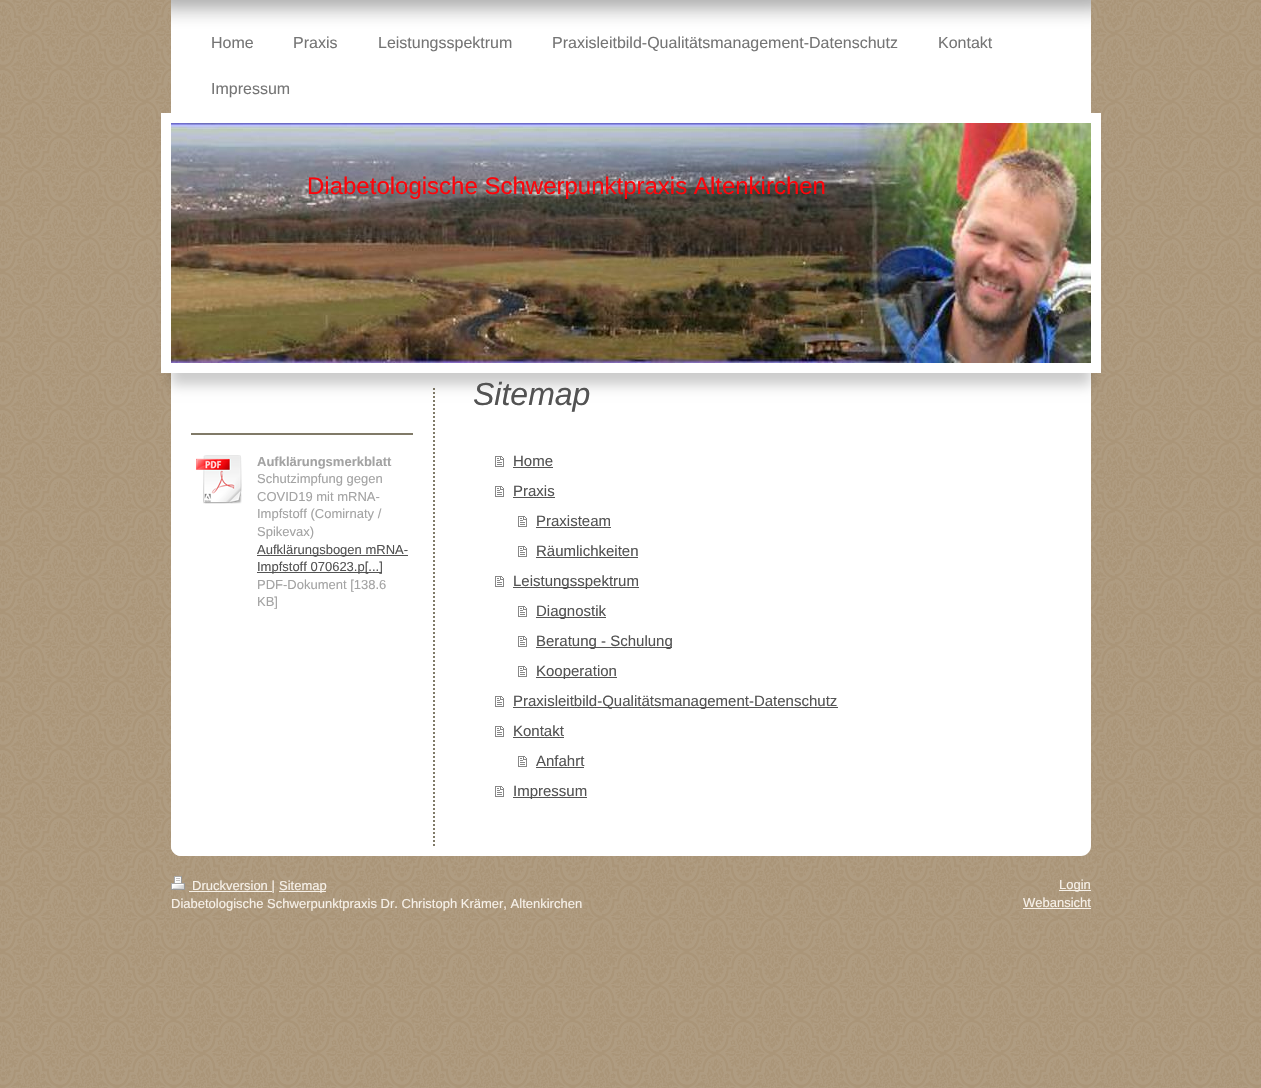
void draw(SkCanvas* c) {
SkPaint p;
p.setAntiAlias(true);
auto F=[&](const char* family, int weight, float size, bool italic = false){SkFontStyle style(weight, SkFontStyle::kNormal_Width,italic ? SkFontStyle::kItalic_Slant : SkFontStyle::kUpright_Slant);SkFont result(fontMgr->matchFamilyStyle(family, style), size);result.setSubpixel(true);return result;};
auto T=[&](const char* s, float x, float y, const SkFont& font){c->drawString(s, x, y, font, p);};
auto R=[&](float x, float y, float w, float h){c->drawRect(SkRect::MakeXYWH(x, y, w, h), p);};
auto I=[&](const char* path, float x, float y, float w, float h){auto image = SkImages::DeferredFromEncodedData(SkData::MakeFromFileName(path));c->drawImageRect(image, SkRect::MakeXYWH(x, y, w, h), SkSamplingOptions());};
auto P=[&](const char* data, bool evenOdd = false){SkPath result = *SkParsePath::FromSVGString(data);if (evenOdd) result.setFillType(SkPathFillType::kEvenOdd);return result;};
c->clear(0xffb37724);
I("1.png",0,0,1261,1088);
p.setColor(0xffffffff);
c->drawPath(P("M171 373h920v473c0 5.5-4.5 10-10 10h-900c-5.5 0-10-4.5-10-10z"),p);
c->drawPath(P("M171 373h262v483h-252c-5.5 0-10-4.5-10-10z"),p);
p.setStroke(true);
p.setStrokeWidth(2);
p.setColor(0xff807a68);
p.setPathEffect(SkDashPathEffect::Make({{2,2}}, 0));
c->drawPath(P("M434 388v459"),p);
p.setPathEffect(nullptr);
p.setStroke(false);
p.setColor(0x33000000);
p.setMaskFilter(SkMaskFilter::MakeBlur(kNormal_SkBlurStyle, 6));
c->drawRect(SkRect::MakeXYWH(171,125,920,260),p);
p.setMaskFilter(nullptr);
p.setColor(0xffffffff);
R(171,0,920,113);
c->save();
c->clipRect(SkRect::MakeXYWH(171,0,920,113));
p.setColor(0xe6000000);
p.setMaskFilter(SkMaskFilter::MakeBlur(kNormal_SkBlurStyle, 12.5));
c->drawRect(SkRect::MakeXYWH(151,-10,960,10),p);
p.setMaskFilter(nullptr);
c->restore();
auto f1 = F("Liberation Sans",400,16);
p.setColor(0xff757575);
T("Home",211,48,f1);
T("Praxis",293,48,f1);
T("Leistungsspektrum",378,48,f1);
T("Praxisleitbild-Qualitätsmanagement-Datenschutz",552,48,f1);
T("Kontakt",938,48,f1);
T("Impressum",211,94,f1);
p.setStroke(true);
p.setStrokeWidth(10);
p.setColor(0xffffffff);
c->drawRect(SkRect::MakeXYWH(166,118,930,250),p);
I("2.png",171,123,920,240);
auto f2 = F("Liberation Sans",400,24);
p.setStroke(false);
p.setColor(0xfffd040a);
T("Diabetologische Schwerpunktpraxis Altenkirchen",307,194,f2);
auto f3 = F("Liberation Sans",400,32,true);
p.setColor(0xff535353);
T("Sitemap",473,405,f3);
I("3.png",495,456,9,11);
auto f4 = F("Liberation Sans",400,15);
T("Home",513,466,f4);
R(513,467,40,1);
I("3.png",495,486,9,11);
T("Praxis",513,496,f4);
R(513,497,42,1);
I("3.png",518,516,9,11);
T("Praxisteam",536,526,f4);
R(536,527,75,1);
I("3.png",518,546,9,11);
T("Räumlichkeiten",536,556,f4);
R(536,557,102,1);
I("3.png",495,576,9,11);
R(513,587,126,1);
T("Leistungsspektrum",513,586,f4);
I("3.png",518,606,9,11);
R(536,617,70,1);
T("Diagnostik",536,616,f4);
I("3.png",518,636,9,11);
R(536,647,136,1);
T("Beratung - Schulung",536,646,f4);
I("3.png",518,666,9,11);
R(536,677,81,1);
T("Kooperation",536,676,f4);
I("3.png",495,696,9,11);
R(513,707,325,1);
T("Praxisleitbild-Qualitätsmanagement-Datenschutz",513,706,f4);
I("3.png",495,726,9,11);
T("Kontakt",513,736,f4);
R(513,737,51,1);
I("3.png",518,756,9,11);
T("Anfahrt",536,766,f4);
R(536,767,48,1);
I("3.png",495,786,9,11);
R(513,797,74,1);
T("Impressum",513,796,f4);
p.setColor(0xff807a68);
R(191,433,222,2);
I("4.png",196,455,46,49);
auto f5 = F("Liberation Sans",700,13);
p.setColor(0xffa3a3a3);
T("Aufklärungsmerkblatt",257,466,f5);
auto f6 = F("Liberation Sans",400,13);
T("Schutzimpfung gegen",257,483,f6);
T("COVID19 mit mRNA-",257,501,f6);
T("Impfstoff (Comirnaty /",257,518,f6);
T("Spikevax)",257,536,f6);
p.setColor(0xff535353);
R(257,555,151,1);
T("Aufklärungsbogen mRNA-",257,554,f6);
R(257,572,125,1);
T("Impfstoff 070623.p[...]",257,571,f6);
p.setColor(0xffa3a3a3);
T("PDF-Dokument [138.6",257,589,f6);
T("KB]",257,606,f6);
I("5.png",171,876,14,14);
p.setColor(0xfff7f1e9);
R(189,891,83,1);
T("Druckversion |",192,890,f6);
R(279,891,47,1);
T("Sitemap",279,890,f6);
T("Diabetologische Schwerpunktpraxis Dr. Christoph Krämer, Altenkirchen",171,908,f6);
R(1059,890,32,1);
T("Login",1059,889,f6);
T("Webansicht",1023,907,f6);
R(1023,908,68,1);
}
